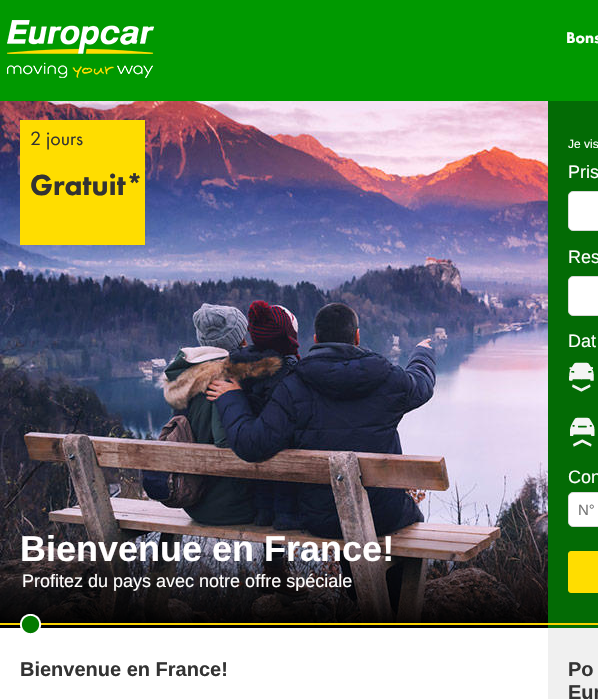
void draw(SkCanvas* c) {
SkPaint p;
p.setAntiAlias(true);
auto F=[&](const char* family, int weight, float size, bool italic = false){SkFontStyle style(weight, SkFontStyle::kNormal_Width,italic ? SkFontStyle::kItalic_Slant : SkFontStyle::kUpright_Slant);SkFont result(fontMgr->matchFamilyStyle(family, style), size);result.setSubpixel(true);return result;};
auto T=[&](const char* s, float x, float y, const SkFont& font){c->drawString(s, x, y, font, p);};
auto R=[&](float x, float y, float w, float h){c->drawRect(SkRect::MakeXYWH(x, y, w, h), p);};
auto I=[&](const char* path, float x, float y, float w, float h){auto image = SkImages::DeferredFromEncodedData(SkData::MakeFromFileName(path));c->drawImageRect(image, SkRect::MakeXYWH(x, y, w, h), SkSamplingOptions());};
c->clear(0xff009900);
I("1.png",7,20,147,58);
auto f1 = F("Futura PT",900,16);
p.setColor(0xfffffefe);
T("Bons",566,43,f1);
I("2.png",0,101,548,527);
p.setColor(0xffffdd00);
R(20,120,125,125);
auto f2 = F("Futura PT",400,20);
p.setColor(0xff333333);
T("2 jours",30,145,f2);
auto f3 = F("Futura PT",900,30);
T("Gratuit*",30,195,f3);
auto f4 = F("Liberation Sans",700,36);
p.setColor(0xfffffefe);
T("Bienvenue en France!",20,561,f4);
auto f5 = F("Liberation Sans",400,18);
T("Profitez du pays avec notre offre spéciale",22,587,f5);
p.setColor(0xff036b05);
R(548,101,50,527);
auto f6 = F("Liberation Sans",400,12);
p.setColor(0xfffffefe);
T("Je vis",568,148,f6);
T("Pris",568,178,f5);
p.setColor(0xffffffff);
c->drawRoundRect(SkRect::MakeXYWH(568.5,191.5,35,39),4.5,4.5,p);
p.setStroke(true);
p.setStrokeWidth(1);
p.setColor(0xffd8d8d8);
c->drawRoundRect(SkRect::MakeXYWH(568.5,191.5,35,39),4.5,4.5,p);
p.setStroke(false);
p.setColor(0xfffffefe);
T("Res",568,263,f5);
p.setColor(0xffffffff);
c->drawRoundRect(SkRect::MakeXYWH(568.5,276.5,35,39),4.5,4.5,p);
p.setStroke(true);
p.setColor(0xffd8d8d8);
c->drawRoundRect(SkRect::MakeXYWH(568.5,276.5,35,39),4.5,4.5,p);
p.setStroke(false);
p.setColor(0xfffffefe);
T("Dat",568,347,f5);
I("3.png",569,362,25,30);
I("4.png",570,417,25,30);
T("Con",568,483,f5);
p.setColor(0xffffffff);
c->drawRoundRect(SkRect::MakeXYWH(568.5,492.5,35,34),4.5,4.5,p);
p.setStroke(true);
p.setColor(0xffd8d8d8);
c->drawRoundRect(SkRect::MakeXYWH(568.5,492.5,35,34),4.5,4.5,p);
auto f7 = F("Liberation Sans",400,15);
p.setStroke(false);
p.setColor(0xff757575);
T("N°",578,515,f7);
p.setColor(0xffffdd00);
c->drawRoundRect(SkRect::MakeXYWH(568.5,551.5,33,41),2.5,2.5,p);
p.setStroke(true);
c->drawRoundRect(SkRect::MakeXYWH(568.5,551.5,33,41),2.5,2.5,p);
p.setStroke(false);
p.setColor(0xfff9d200);
R(0,623,598,2);
p.setColor(0xffffffff);
R(0,628,548,71);
I("5.png",20,614,22,20);
auto f8 = F("Liberation Sans",700,20);
p.setColor(0xff333333);
T("Bienvenue en France!",20,676,f8);
p.setColor(0xfff0f0f0);
R(548,628,50,71);
p.setColor(0xff333333);
T("Po",568,676,f8);
T("Eur",568,699,f8);
}
